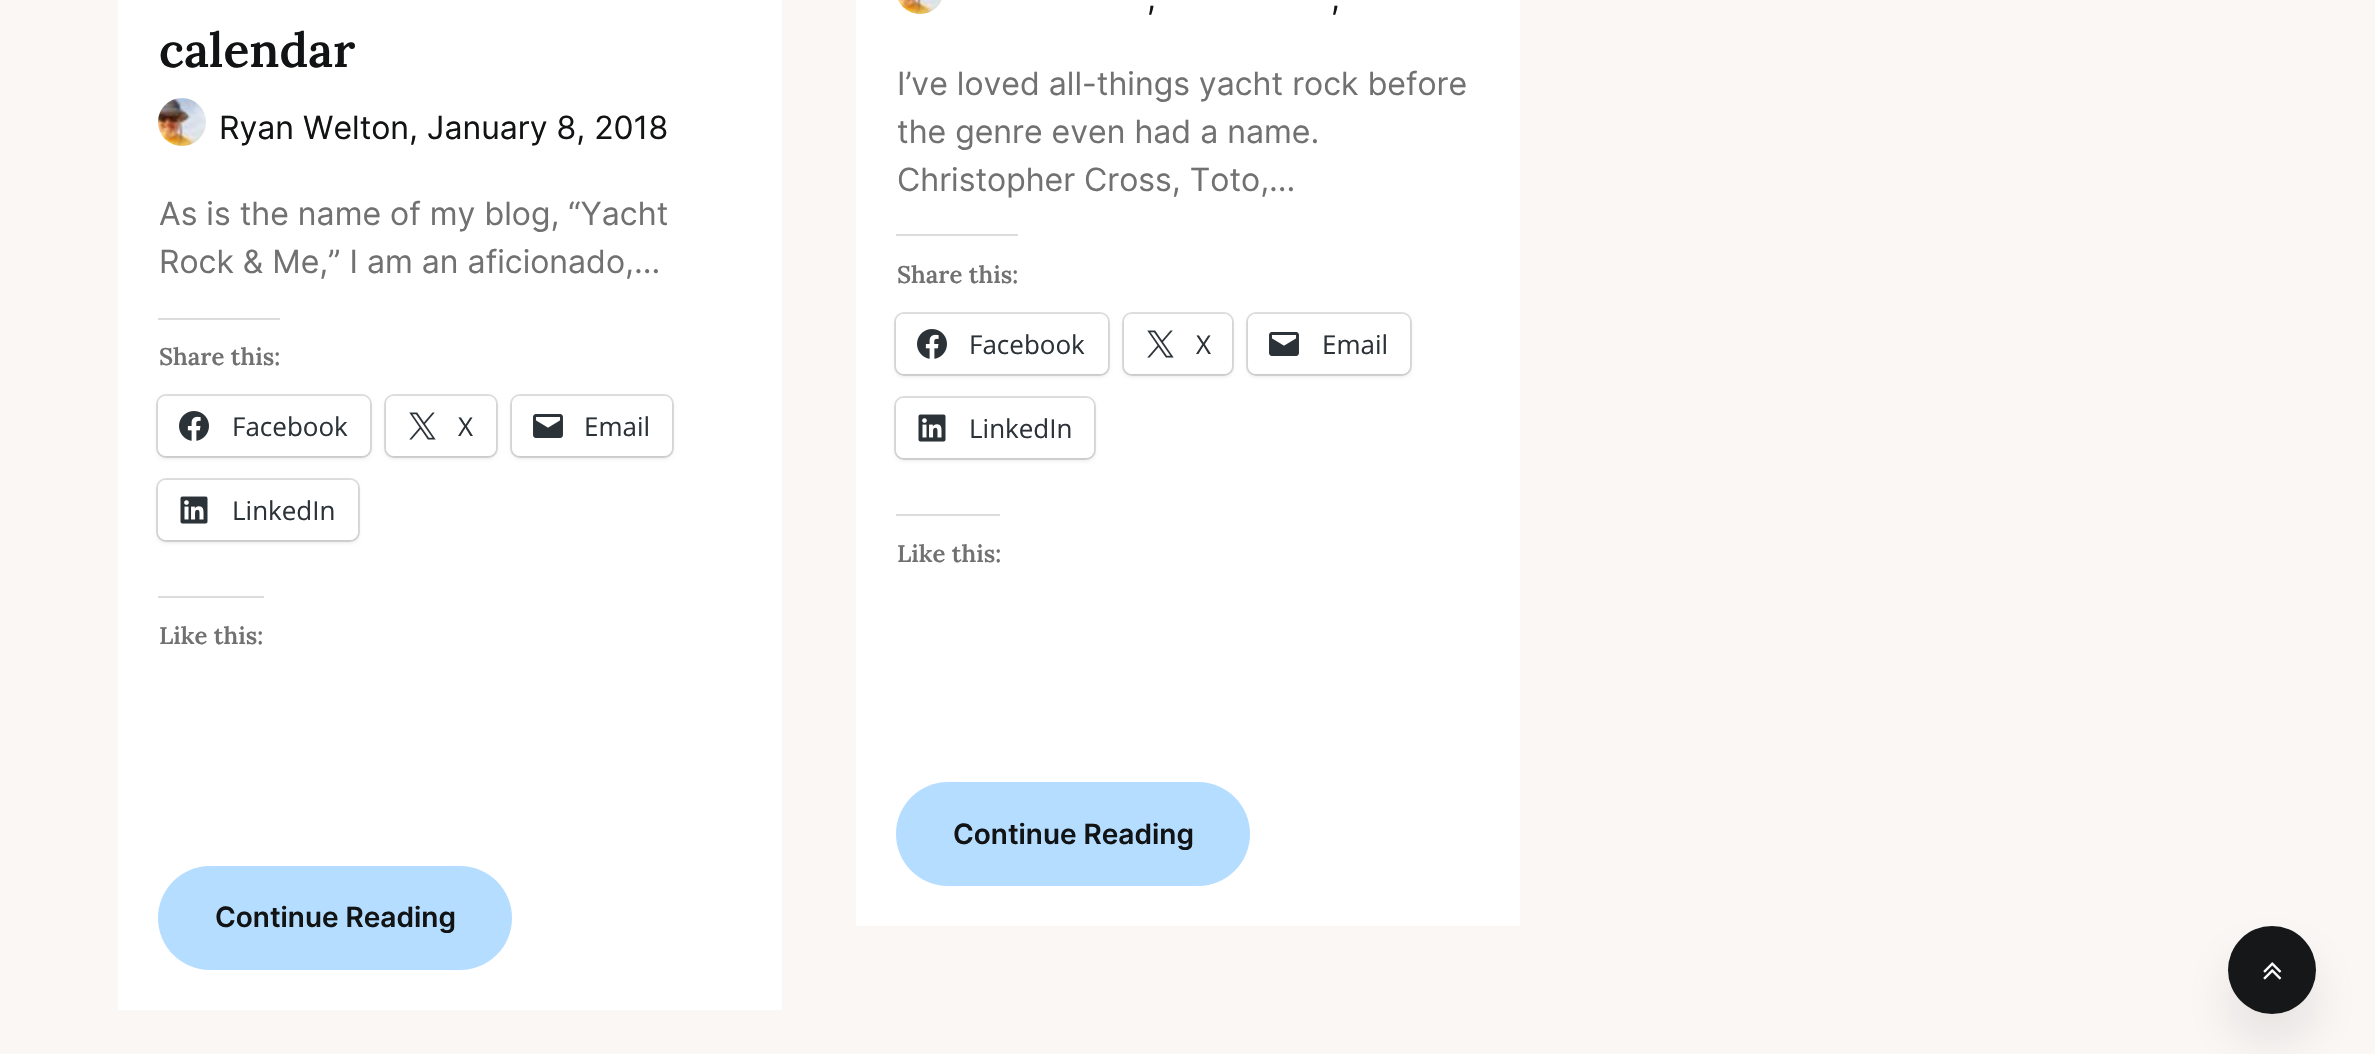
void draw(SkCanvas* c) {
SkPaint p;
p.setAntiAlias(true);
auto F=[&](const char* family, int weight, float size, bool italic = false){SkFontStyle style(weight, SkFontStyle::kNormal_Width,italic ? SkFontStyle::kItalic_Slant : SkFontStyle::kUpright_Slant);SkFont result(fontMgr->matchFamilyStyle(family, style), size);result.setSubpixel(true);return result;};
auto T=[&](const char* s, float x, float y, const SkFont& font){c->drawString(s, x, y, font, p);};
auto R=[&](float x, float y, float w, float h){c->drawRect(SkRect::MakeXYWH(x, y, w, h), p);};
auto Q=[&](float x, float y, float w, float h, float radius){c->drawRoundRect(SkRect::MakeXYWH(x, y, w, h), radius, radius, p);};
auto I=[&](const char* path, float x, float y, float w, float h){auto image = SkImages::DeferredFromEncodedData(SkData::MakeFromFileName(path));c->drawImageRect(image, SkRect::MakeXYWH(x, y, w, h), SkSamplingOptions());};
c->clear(0xfffbf7f5);
p.setColor(0xffffffff);
R(118,0,664,1010);
auto f1 = F("Lora",600,48);
p.setColor(0xff111314);
T("calendar",159,67,f1);
I("1.png",158,98,48,48);
auto f2 = F("Inter",400,32);
T("Ryan Welton, January 8, 2018",219,139,f2);
p.setColor(0xff717171);
T("As is the name of my blog, “Yacht",159,225,f2);
T("Rock & Me,” I am an aficionado,…",159,273,f2);
p.setColor(0xffdcdcde);
R(158,318,122,2);
auto f3 = F("Lora",600,24);
p.setColor(0xff717171);
T("Share this:",159,365,f3);
p.setStroke(true);
p.setStrokeWidth(2);
p.setColor(0xffe0e0e0);
c->drawRoundRect(SkRect::MakeXYWH(157,395,214,62),9,9,p);
p.setStroke(false);
p.setColor(0x1f000000);
p.setMaskFilter(SkMaskFilter::MakeBlur(kNormal_SkBlurStyle, 2));
c->drawRoundRect(SkRect::MakeXYWH(158,398,212,60),8,8,p);
p.setMaskFilter(nullptr);
p.setColor(0xffffffff);
Q(158,396,212,60,8);
I("2.png",179,411,30,30);
auto f4 = F("Open Sans",400,26);
p.setColor(0xff2c3338);
T("Facebook",232,436,f4);
p.setStroke(true);
p.setColor(0xffe0e0e0);
c->drawRoundRect(SkRect::MakeXYWH(385,395,112,62),9,9,p);
p.setStroke(false);
p.setColor(0x1f000000);
p.setMaskFilter(SkMaskFilter::MakeBlur(kNormal_SkBlurStyle, 2));
c->drawRoundRect(SkRect::MakeXYWH(386,398,110,60),8,8,p);
p.setMaskFilter(nullptr);
p.setColor(0xffffffff);
Q(386,396,110,60,8);
I("3.png",409,412,27,28);
p.setColor(0xff2c3338);
T("X",458,436,f4);
p.setStroke(true);
p.setColor(0xffe0e0e0);
c->drawRoundRect(SkRect::MakeXYWH(511,395,162,62),9,9,p);
p.setStroke(false);
p.setColor(0x1f000000);
p.setMaskFilter(SkMaskFilter::MakeBlur(kNormal_SkBlurStyle, 2));
c->drawRoundRect(SkRect::MakeXYWH(512,398,160,60),8,8,p);
p.setMaskFilter(nullptr);
p.setColor(0xffffffff);
Q(512,396,160,60,8);
I("4.png",533,414,30,24);
p.setColor(0xff2c3338);
T("Email",584,436,f4);
p.setStroke(true);
p.setColor(0xffe0e0e0);
c->drawRoundRect(SkRect::MakeXYWH(157,479,202,62),9,9,p);
p.setStroke(false);
p.setColor(0x1f000000);
p.setMaskFilter(SkMaskFilter::MakeBlur(kNormal_SkBlurStyle, 2));
c->drawRoundRect(SkRect::MakeXYWH(158,482,200,60),8,8,p);
p.setMaskFilter(nullptr);
p.setColor(0xffffffff);
Q(158,480,200,60,8);
I("5.png",180,496,28,28);
p.setColor(0xff2c3338);
T("LinkedIn",232,520,f4);
p.setColor(0xffdcdcde);
R(158,596,106,2);
p.setColor(0xff717171);
T("Like this:",159,644,f3);
p.setColor(0xffb5ddff);
Q(158,866,354,104,52);
auto f5 = F("Inter",600,28);
p.setColor(0xff111314);
T("Continue Reading",215,927,f5);
p.setColor(0xffffffff);
R(856,0,664,926);
I("6.png",898,0,44,14);
p.setColor(0xff111314);
T(",",1147,9,f2);
T(",",1331,9,f2);
p.setColor(0xff717171);
T("I’ve loved all-things yacht rock before",897,95,f2);
T("the genre even had a name.",897,143,f2);
T("Christopher Cross, Toto,…",897,191,f2);
p.setColor(0xffdcdcde);
R(896,234,122,2);
p.setColor(0xff717171);
T("Share this:",897,283,f3);
p.setStroke(true);
p.setColor(0xffe0e0e0);
c->drawRoundRect(SkRect::MakeXYWH(895,313,214,62),9,9,p);
p.setStroke(false);
p.setColor(0x1f000000);
p.setMaskFilter(SkMaskFilter::MakeBlur(kNormal_SkBlurStyle, 2));
c->drawRoundRect(SkRect::MakeXYWH(896,316,212,60),8,8,p);
p.setMaskFilter(nullptr);
p.setColor(0xffffffff);
Q(896,314,212,60,8);
I("2.png",917,329,30,30);
p.setColor(0xff2c3338);
T("Facebook",969,354,f4);
p.setStroke(true);
p.setColor(0xffe0e0e0);
c->drawRoundRect(SkRect::MakeXYWH(1123,313,110,62),9,9,p);
p.setStroke(false);
p.setColor(0x1f000000);
p.setMaskFilter(SkMaskFilter::MakeBlur(kNormal_SkBlurStyle, 2));
c->drawRoundRect(SkRect::MakeXYWH(1124,316,108,60),8,8,p);
p.setMaskFilter(nullptr);
p.setColor(0xffffffff);
Q(1124,314,108,60,8);
I("3.png",1147,330,27,28);
p.setColor(0xff2c3338);
T("X",1196,354,f4);
p.setStroke(true);
p.setColor(0xffe0e0e0);
c->drawRoundRect(SkRect::MakeXYWH(1247,313,164,62),9,9,p);
p.setStroke(false);
p.setColor(0x1f000000);
p.setMaskFilter(SkMaskFilter::MakeBlur(kNormal_SkBlurStyle, 2));
c->drawRoundRect(SkRect::MakeXYWH(1248,316,162,60),8,8,p);
p.setMaskFilter(nullptr);
p.setColor(0xffffffff);
Q(1248,314,162,60,8);
I("4.png",1269,332,30,24);
p.setColor(0xff2c3338);
T("Email",1322,354,f4);
p.setStroke(true);
p.setColor(0xffe0e0e0);
c->drawRoundRect(SkRect::MakeXYWH(895,397,200,62),9,9,p);
p.setStroke(false);
p.setColor(0x1f000000);
p.setMaskFilter(SkMaskFilter::MakeBlur(kNormal_SkBlurStyle, 2));
c->drawRoundRect(SkRect::MakeXYWH(896,400,198,60),8,8,p);
p.setMaskFilter(nullptr);
p.setColor(0xffffffff);
Q(896,398,198,60,8);
I("5.png",918,414,28,28);
p.setColor(0xff2c3338);
T("LinkedIn",969,438,f4);
p.setColor(0xffdcdcde);
R(896,514,104,2);
p.setColor(0xff717171);
T("Like this:",897,562,f3);
p.setColor(0xffb5ddff);
Q(896,782,354,104,52);
p.setColor(0xff111314);
T("Continue Reading",953,844,f5);
p.setColor(0x26121518);
p.setMaskFilter(SkMaskFilter::MakeBlur(kNormal_SkBlurStyle, 28));
c->drawRoundRect(SkRect::MakeXYWH(2236,962,72,72),36,36,p);
p.setMaskFilter(nullptr);
p.setColor(0xff151718);
c->drawCircle(2272,970,44,p);
I("7.png",2263,962,19,18);
}
